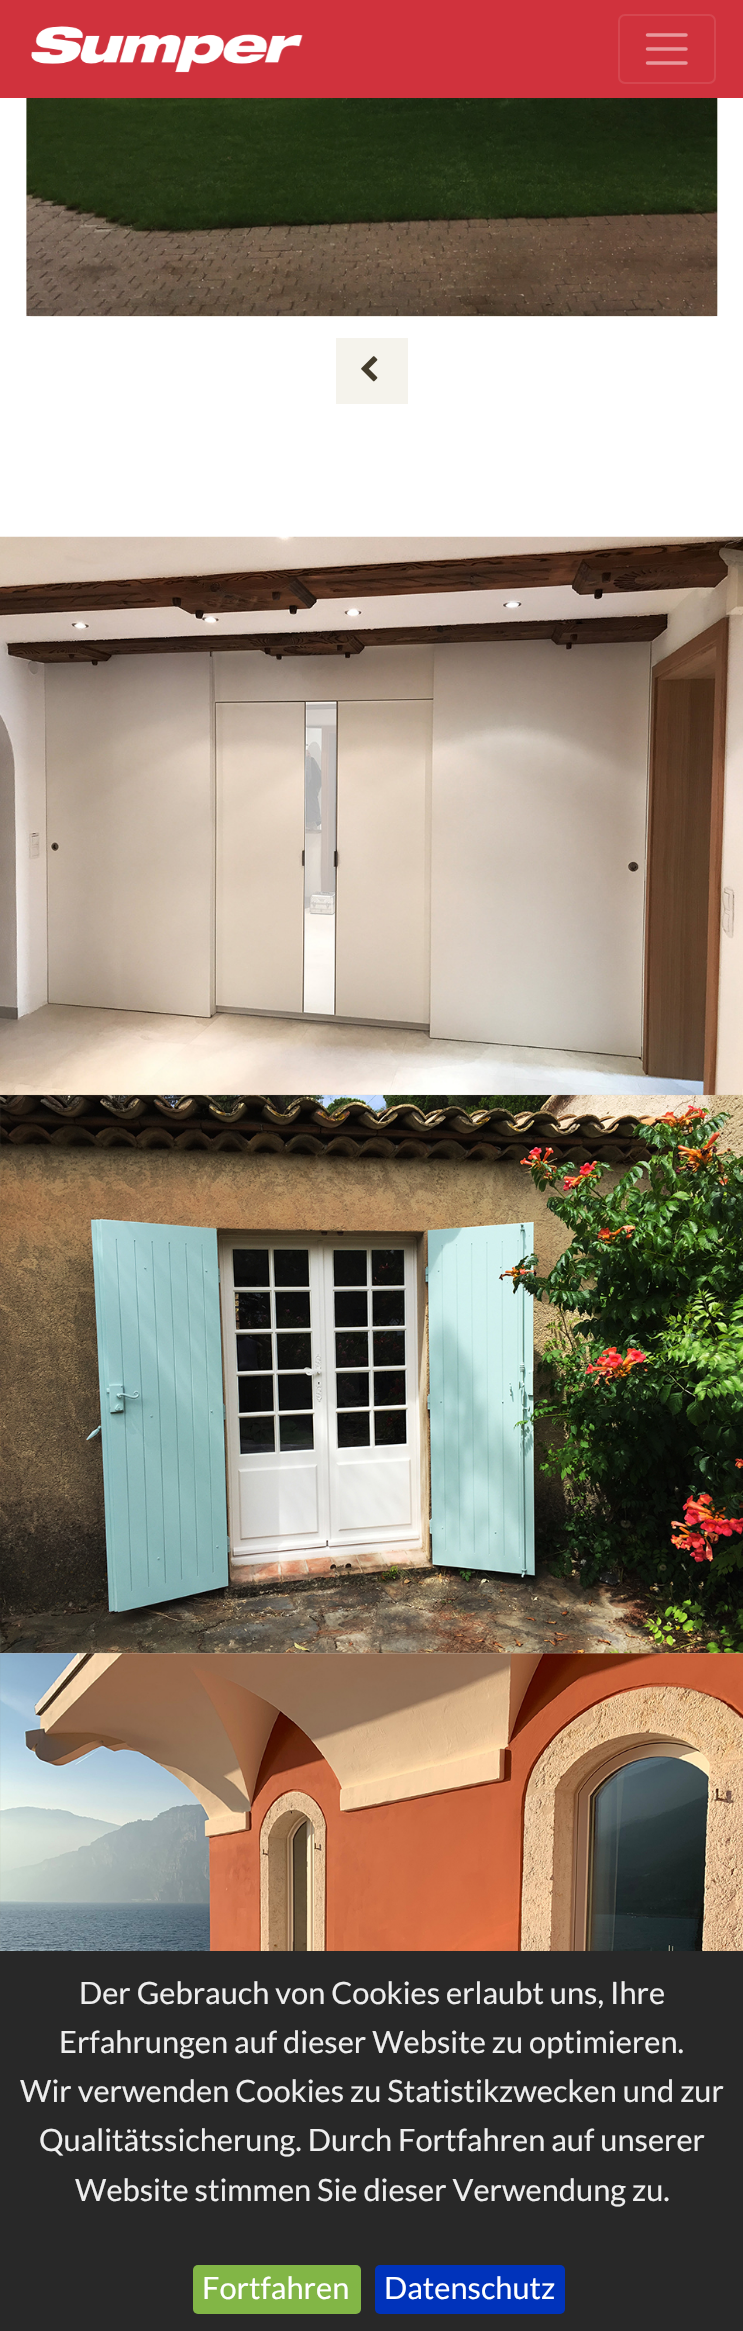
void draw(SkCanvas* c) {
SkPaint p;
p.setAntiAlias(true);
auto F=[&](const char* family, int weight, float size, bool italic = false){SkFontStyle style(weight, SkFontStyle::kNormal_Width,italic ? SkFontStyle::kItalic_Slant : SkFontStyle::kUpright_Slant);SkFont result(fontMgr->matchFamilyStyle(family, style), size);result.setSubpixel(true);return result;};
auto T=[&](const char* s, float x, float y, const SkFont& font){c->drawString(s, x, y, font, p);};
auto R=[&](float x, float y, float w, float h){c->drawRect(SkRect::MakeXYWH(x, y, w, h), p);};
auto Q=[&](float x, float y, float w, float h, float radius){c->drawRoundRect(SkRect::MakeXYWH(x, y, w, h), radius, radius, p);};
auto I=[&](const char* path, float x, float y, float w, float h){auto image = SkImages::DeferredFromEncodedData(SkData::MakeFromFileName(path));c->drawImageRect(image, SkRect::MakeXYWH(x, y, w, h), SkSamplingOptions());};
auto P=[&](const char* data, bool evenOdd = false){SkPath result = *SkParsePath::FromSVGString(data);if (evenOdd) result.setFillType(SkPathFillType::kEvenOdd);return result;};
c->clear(0xffffffff);
p.setColor(0xfff5f3ec);
Q(26,-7,692,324,7);
I("1.png",26,98,692,219);
R(336,338,72,66);
I("2.png",361,356,17,26);
p.setColor(0xffd0323d);
R(0,0,743,98);
I("3.png",31,26,272,47);
p.setStroke(true);
p.setStrokeWidth(2);
p.setColor(0xffd54750);
c->drawRoundRect(SkRect::MakeXYWH(619,15,96,68),6,6,p);
p.setStrokeWidth(3.5);
p.setStrokeCap(SkPaint::kRound_Cap);
p.setColor(0xffe8999e);
c->drawPath(P("M647.5 35h38.5m-38.5 14h38.5m-38.5 14h38.5"),p);
I("4.png",0,536,743,559);
I("5.png",0,1095,743,559);
I("6.png",0,1653,743,298);
p.setStroke(false);
p.setColor(0xff282828);
R(0,1951,743,380);
auto f1 = F("Lato",400,30.8);
p.setColor(0xffeeeeee);
T("Der Gebrauch von Cookies erlaubt uns, Ihre",79,2004,f1);
T("Erfahrungen auf dieser Website zu optimieren.",59,2053,f1);
T("Wir verwenden Cookies zu Statistikzwecken und zur",20,2102,f1);
T("Qualitätssicherung. Durch Fortfahren auf unserer",39,2151,f1);
T("Website stimmen Sie dieser Verwendung zu.",75,2201,f1);
p.setColor(0xff82b646);
Q(193,2265,168,49,5);
p.setColor(0xffffffff);
T("Fortfahren",202,2299,f1);
p.setColor(0xff0033bb);
Q(375,2265,190,49,5);
p.setColor(0xffffffff);
T("Datenschutz",384,2299,f1);
}
